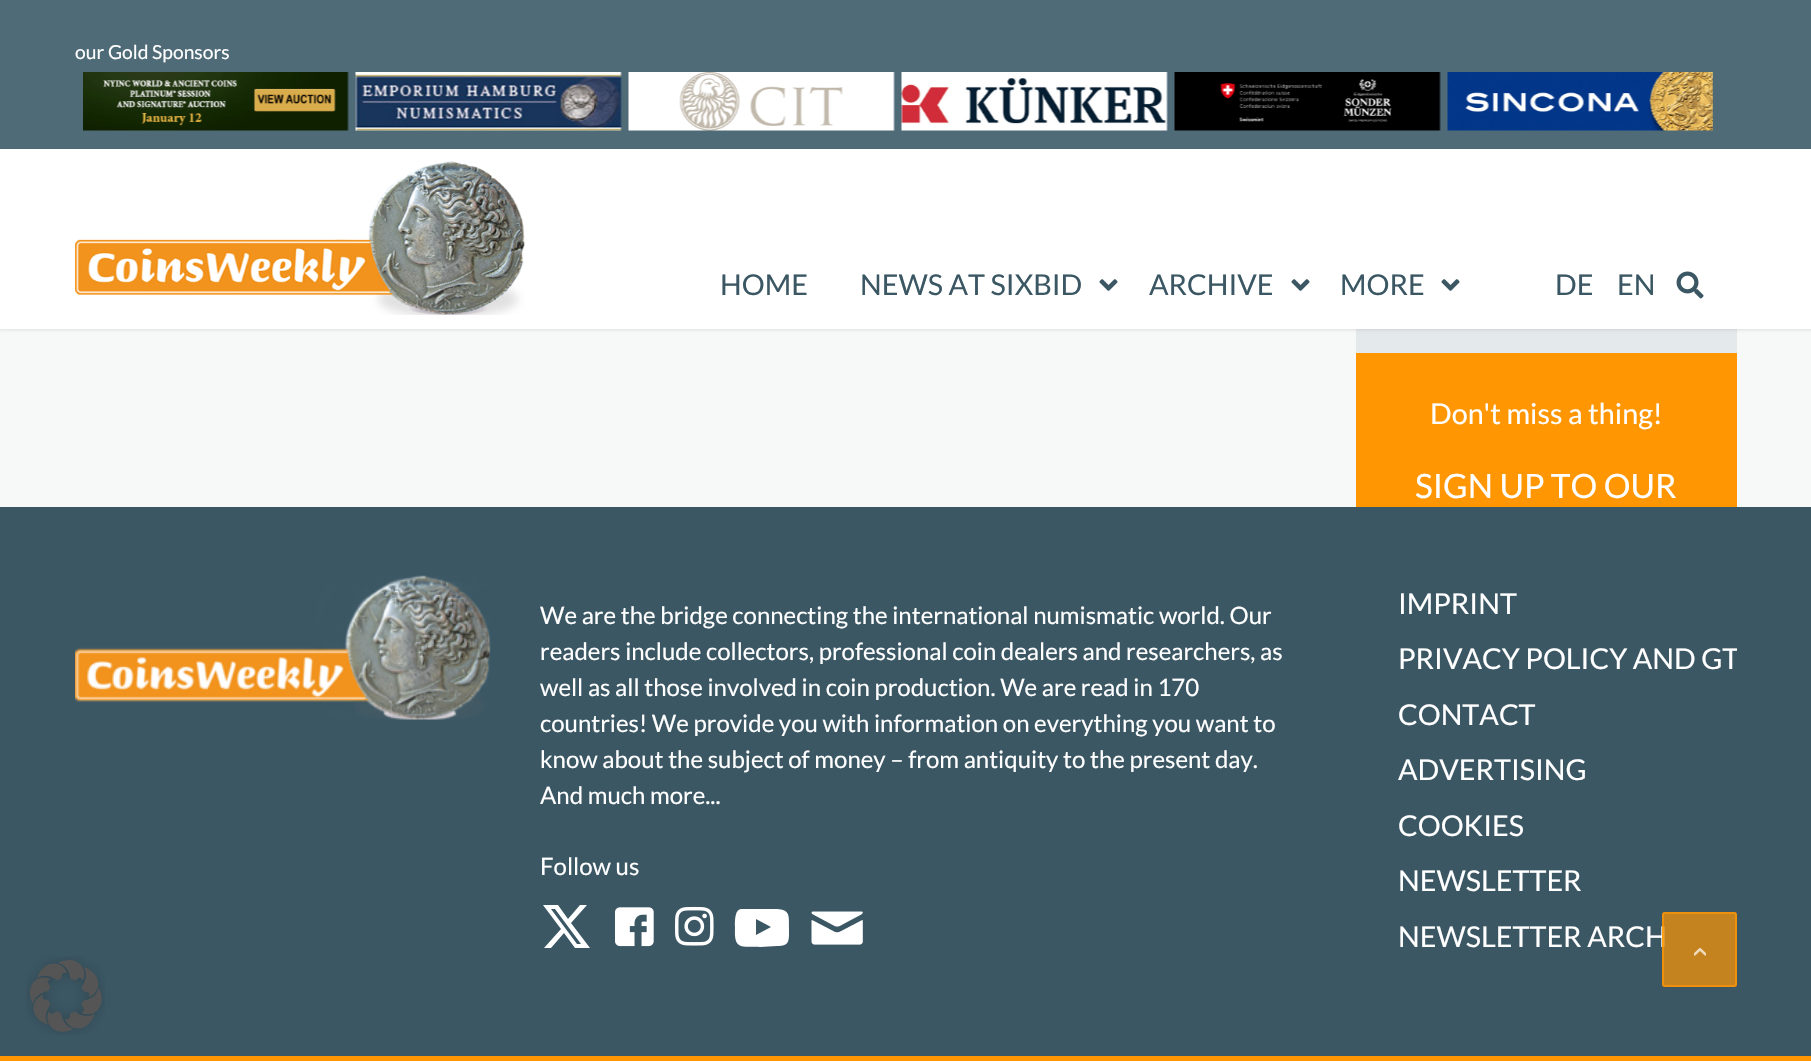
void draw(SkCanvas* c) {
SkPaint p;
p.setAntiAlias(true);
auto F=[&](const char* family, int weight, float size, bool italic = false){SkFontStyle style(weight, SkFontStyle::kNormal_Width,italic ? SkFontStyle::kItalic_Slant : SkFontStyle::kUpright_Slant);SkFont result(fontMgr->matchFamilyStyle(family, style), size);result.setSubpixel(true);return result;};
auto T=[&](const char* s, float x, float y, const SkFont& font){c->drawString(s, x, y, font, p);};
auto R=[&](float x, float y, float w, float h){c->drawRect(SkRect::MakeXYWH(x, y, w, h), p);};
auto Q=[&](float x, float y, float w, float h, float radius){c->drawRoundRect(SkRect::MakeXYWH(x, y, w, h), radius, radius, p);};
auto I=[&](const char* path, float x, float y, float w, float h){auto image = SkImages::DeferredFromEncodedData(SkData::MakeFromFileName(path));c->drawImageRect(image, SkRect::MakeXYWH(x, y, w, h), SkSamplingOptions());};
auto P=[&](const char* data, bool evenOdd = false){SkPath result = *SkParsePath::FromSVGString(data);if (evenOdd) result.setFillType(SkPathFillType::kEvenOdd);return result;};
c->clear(0xfff7f9f9);
p.setColor(0xffe4e9eb);
R(1356,329,381,24);
p.setColor(0x1a000000);
p.setMaskFilter(SkMaskFilter::MakeBlur(kNormal_SkBlurStyle, 1.5));
c->drawRect(SkRect::MakeXYWH(-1,-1,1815,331),p);
p.setMaskFilter(nullptr);
p.setColor(0xff4f6b78);
R(0,0,1811,149);
auto f1 = F("Lato",400,19.25);
p.setColor(0xffffffff);
T("our Gold Sponsors",75,59,f1);
I("1.png",83,72,266,59);
I("2.png",355,72,267,59);
I("3.png",628,72,267,59);
I("4.png",901,72,267,59);
I("5.png",1174,72,267,59);
I("6.png",1447,72,266,59);
R(0,149,1811,180);
I("7.png",75,161,450,154);
auto f2 = F("Lato",400,28.75);
p.setColor(0xff3b5764);
T("HOME",720,295,f2);
T("NEWS AT SIXBID",860,295,f2);
I("8.png",1099,279,19,12);
T("ARCHIVE",1149,295,f2);
I("8.png",1291,279,19,12);
T("MORE",1340,295,f2);
I("8.png",1441,279,19,12);
T("DE",1555,295,f2);
T("EN",1617,295,f2);
I("9.png",1676,271,28,28);
p.setColor(0xffff9602);
R(1356,353,381,154);
p.setColor(0xffffffff);
T("Don't miss a thing!",1430,424,f2);
auto f3 = F("Lato",400,33.5);
T("SIGN UP TO OUR",1415,498,f3);
p.setColor(0xff3b5764);
R(0,507,1811,549);
I("10.png",75,575,416,145);
auto f4 = F("Lato",400,24);
p.setColor(0xffffffff);
T("We are the bridge connecting the international numismatic world. Our",540,624,f4);
T("readers include collectors, professional coin dealers and researchers, as",540,660,f4);
T("well as all those involved in coin production. We are read in 170",540,696,f4);
T("countries! We provide you with information on everything you want to",540,732,f4);
T("know about the subject of money – from antiquity to the present day.",540,768,f4);
T("And much more...",540,804,f4);
T("Follow us",540,875,f4);
c->drawPath(P("M580 905h7l-16 18l19 25h-15l-11-15l-13 15h-7l17-19l-18-24h15l10 14zm-3 39h4l-26-35h-4z"),p);
I("11.png",615,907,39,40);
I("12.png",675,906,39,40);
c->drawPath(P("M756 935l15-8l-15-8zm6-26h15c13 1 12 6 12 19c0 13 1 18-12 18l-17 1c-5-1-17 1-21-2c-5-3-4-13-4-18c0-3-1-19 7-18z"),p);
I("13.png",811,911,52,34);
T("IMPRINT",1398,614,f2);
c->save();
c->clipRect(SkRect::MakeXYWH(1338,576,399,389));
T("PRIVACY POLICY AND GT",1398,669,f2);
c->restore();
T("CONTACT",1398,725,f2);
T("ADVERTISING",1398,780,f2);
T("COOKIES",1398,836,f2);
T("NEWSLETTER",1398,891,f2);
T("NEWSLETTER ARCH",1398,947,f2);
p.setColor(0xffff9602);
R(0,1056,1811,5);
I("14.png",26,956,79,79);
p.setColor(0xb3ff9602);
Q(1662,912,75,75,3);
p.setStroke(true);
p.setStrokeWidth(2);
c->drawRoundRect(SkRect::MakeXYWH(1663,913,73,73),2,2,p);
I("15.png",1694,948,12,8);
}
